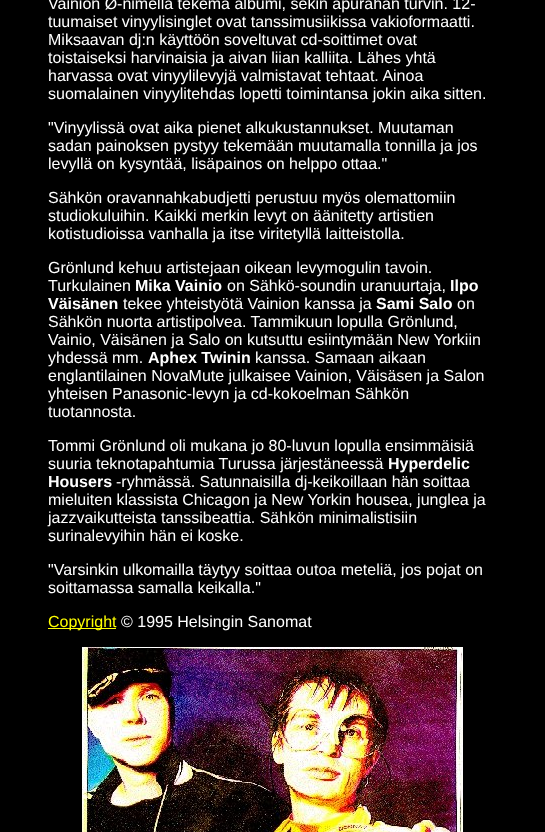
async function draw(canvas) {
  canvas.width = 545;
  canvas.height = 832;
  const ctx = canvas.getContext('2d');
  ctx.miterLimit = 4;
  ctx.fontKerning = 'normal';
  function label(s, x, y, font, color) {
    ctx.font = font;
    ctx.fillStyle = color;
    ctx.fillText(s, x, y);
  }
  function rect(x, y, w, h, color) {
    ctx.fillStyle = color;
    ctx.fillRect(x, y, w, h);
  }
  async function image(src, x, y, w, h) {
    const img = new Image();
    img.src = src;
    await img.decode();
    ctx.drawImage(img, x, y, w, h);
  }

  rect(0, 0, 545, 832, '#000');
  label('Vainion Ø-nimellä tekemä albumi, sekin apurahan turvin. 12-', 48, 9, '16px Liberation Sans', '#fff');
  label('tuumaiset vinyylisinglet ovat tanssimusiikissa vakioformaatti.', 48, 27, '16px Liberation Sans', '#fff');
  label('Miksaavan dj:n käyttöön soveltuvat cd-soittimet ovat', 48, 45, '16px Liberation Sans', '#fff');
  label('toistaiseksi harvinaisia ja aivan liian kalliita. Lähes yhtä', 48, 63, '16px Liberation Sans', '#fff');
  label('harvassa ovat vinyylilevyjä valmistavat tehtaat. Ainoa', 48, 81, '16px Liberation Sans', '#fff');
  label('suomalainen vinyylitehdas lopetti toimintansa jokin aika sitten.', 48, 99, '16px Liberation Sans', '#fff');
  label('"Vinyylissä ovat aika pienet alkukustannukset. Muutaman', 48, 133, '16px Liberation Sans', '#fff');
  label('sadan painoksen pystyy tekemään muutamalla tonnilla ja jos', 48, 151, '16px Liberation Sans', '#fff');
  label('levyllä on kysyntää, lisäpainos on helppo ottaa."', 48, 169, '16px Liberation Sans', '#fff');
  label('Sähkön oravannahkabudjetti perustuu myös olemattomiin', 48, 203, '16px Liberation Sans', '#fff');
  label('studiokuluihin. Kaikki merkin levyt on äänitetty artistien', 48, 221, '16px Liberation Sans', '#fff');
  label('kotistudioissa vanhalla ja itse viritetyllä laitteistolla.', 48, 239, '16px Liberation Sans', '#fff');
  label('Grönlund kehuu artistejaan oikean levymogulin tavoin.', 48, 273, '16px Liberation Sans', '#fff');
  label('Turkulainen', 48, 291, '16px Liberation Sans', '#fff');
  label('Mika Vainio', 135, 291, 'bold 16px Liberation Sans', '#fff');
  label('on Sähkö-soundin uranuurtaja,', 227, 291, '16px Liberation Sans', '#fff');
  label('Ilpo', 450, 291, 'bold 16px Liberation Sans', '#fff');
  label('Väisänen', 48, 309, 'bold 16px Liberation Sans', '#fff');
  label('tekee yhteistyötä Vainion kanssa ja', 123, 309, '16px Liberation Sans', '#fff');
  label('Sami Salo', 376, 309, 'bold 16px Liberation Sans', '#fff');
  label('on', 457, 309, '16px Liberation Sans', '#fff');
  label('Sähkön nuorta artistipolvea. Tammikuun lopulla Grönlund,', 48, 327, '16px Liberation Sans', '#fff');
  label('Vainio, Väisänen ja Salo on kutsuttu esiintymään New Yorkiin', 48, 345, '16px Liberation Sans', '#fff');
  label('yhdessä mm.', 48, 363, '16px Liberation Sans', '#fff');
  label('Aphex Twinin', 148, 363, 'bold 16px Liberation Sans', '#fff');
  label('kanssa. Samaan aikaan', 255, 363, '16px Liberation Sans', '#fff');
  label('englantilainen NovaMute julkaisee Vainion, Väisäsen ja Salon', 48, 381, '16px Liberation Sans', '#fff');
  label('yhteisen Panasonic-levyn ja cd-kokoelman Sähkön', 48, 399, '16px Liberation Sans', '#fff');
  label('tuotannosta.', 48, 417, '16px Liberation Sans', '#fff');
  label('Tommi Grönlund oli mukana jo 80-luvun lopulla ensimmäisiä', 48, 451, '16px Liberation Sans', '#fff');
  label('suuria teknotapahtumia Turussa järjestäneessä', 48, 469, '16px Liberation Sans', '#fff');
  label('Hyperdelic', 388, 469, 'bold 16px Liberation Sans', '#fff');
  label('Housers', 48, 487, 'bold 16px Liberation Sans', '#fff');
  label('-ryhmässä. Satunnaisilla dj-keikoillaan hän soittaa', 116, 487, '16px Liberation Sans', '#fff');
  label('mieluiten klassista Chicagon ja New Yorkin housea, junglea ja', 48, 505, '16px Liberation Sans', '#fff');
  label('jazzvaikutteista tanssibeattia. Sähkön minimalistisiin', 48, 523, '16px Liberation Sans', '#fff');
  label('surinalevyihin hän ei koske.', 48, 541, '16px Liberation Sans', '#fff');
  label('"Varsinkin ulkomailla täytyy soittaa outoa meteliä, jos pojat on', 48, 575, '16px Liberation Sans', '#fff');
  label('soittamassa samalla keikalla."', 48, 593, '16px Liberation Sans', '#fff');
  rect(48, 628, 68, 1, '#ff0');
  label('Copyright', 48, 627, '16px Liberation Sans', '#ff0');
  label('© 1995 Helsingin Sanomat', 121, 627, '16px Liberation Sans', '#fff');
  await image('assets/img1.png', 82, 647, 381, 185);
}

draw(document.querySelector('canvas'));
